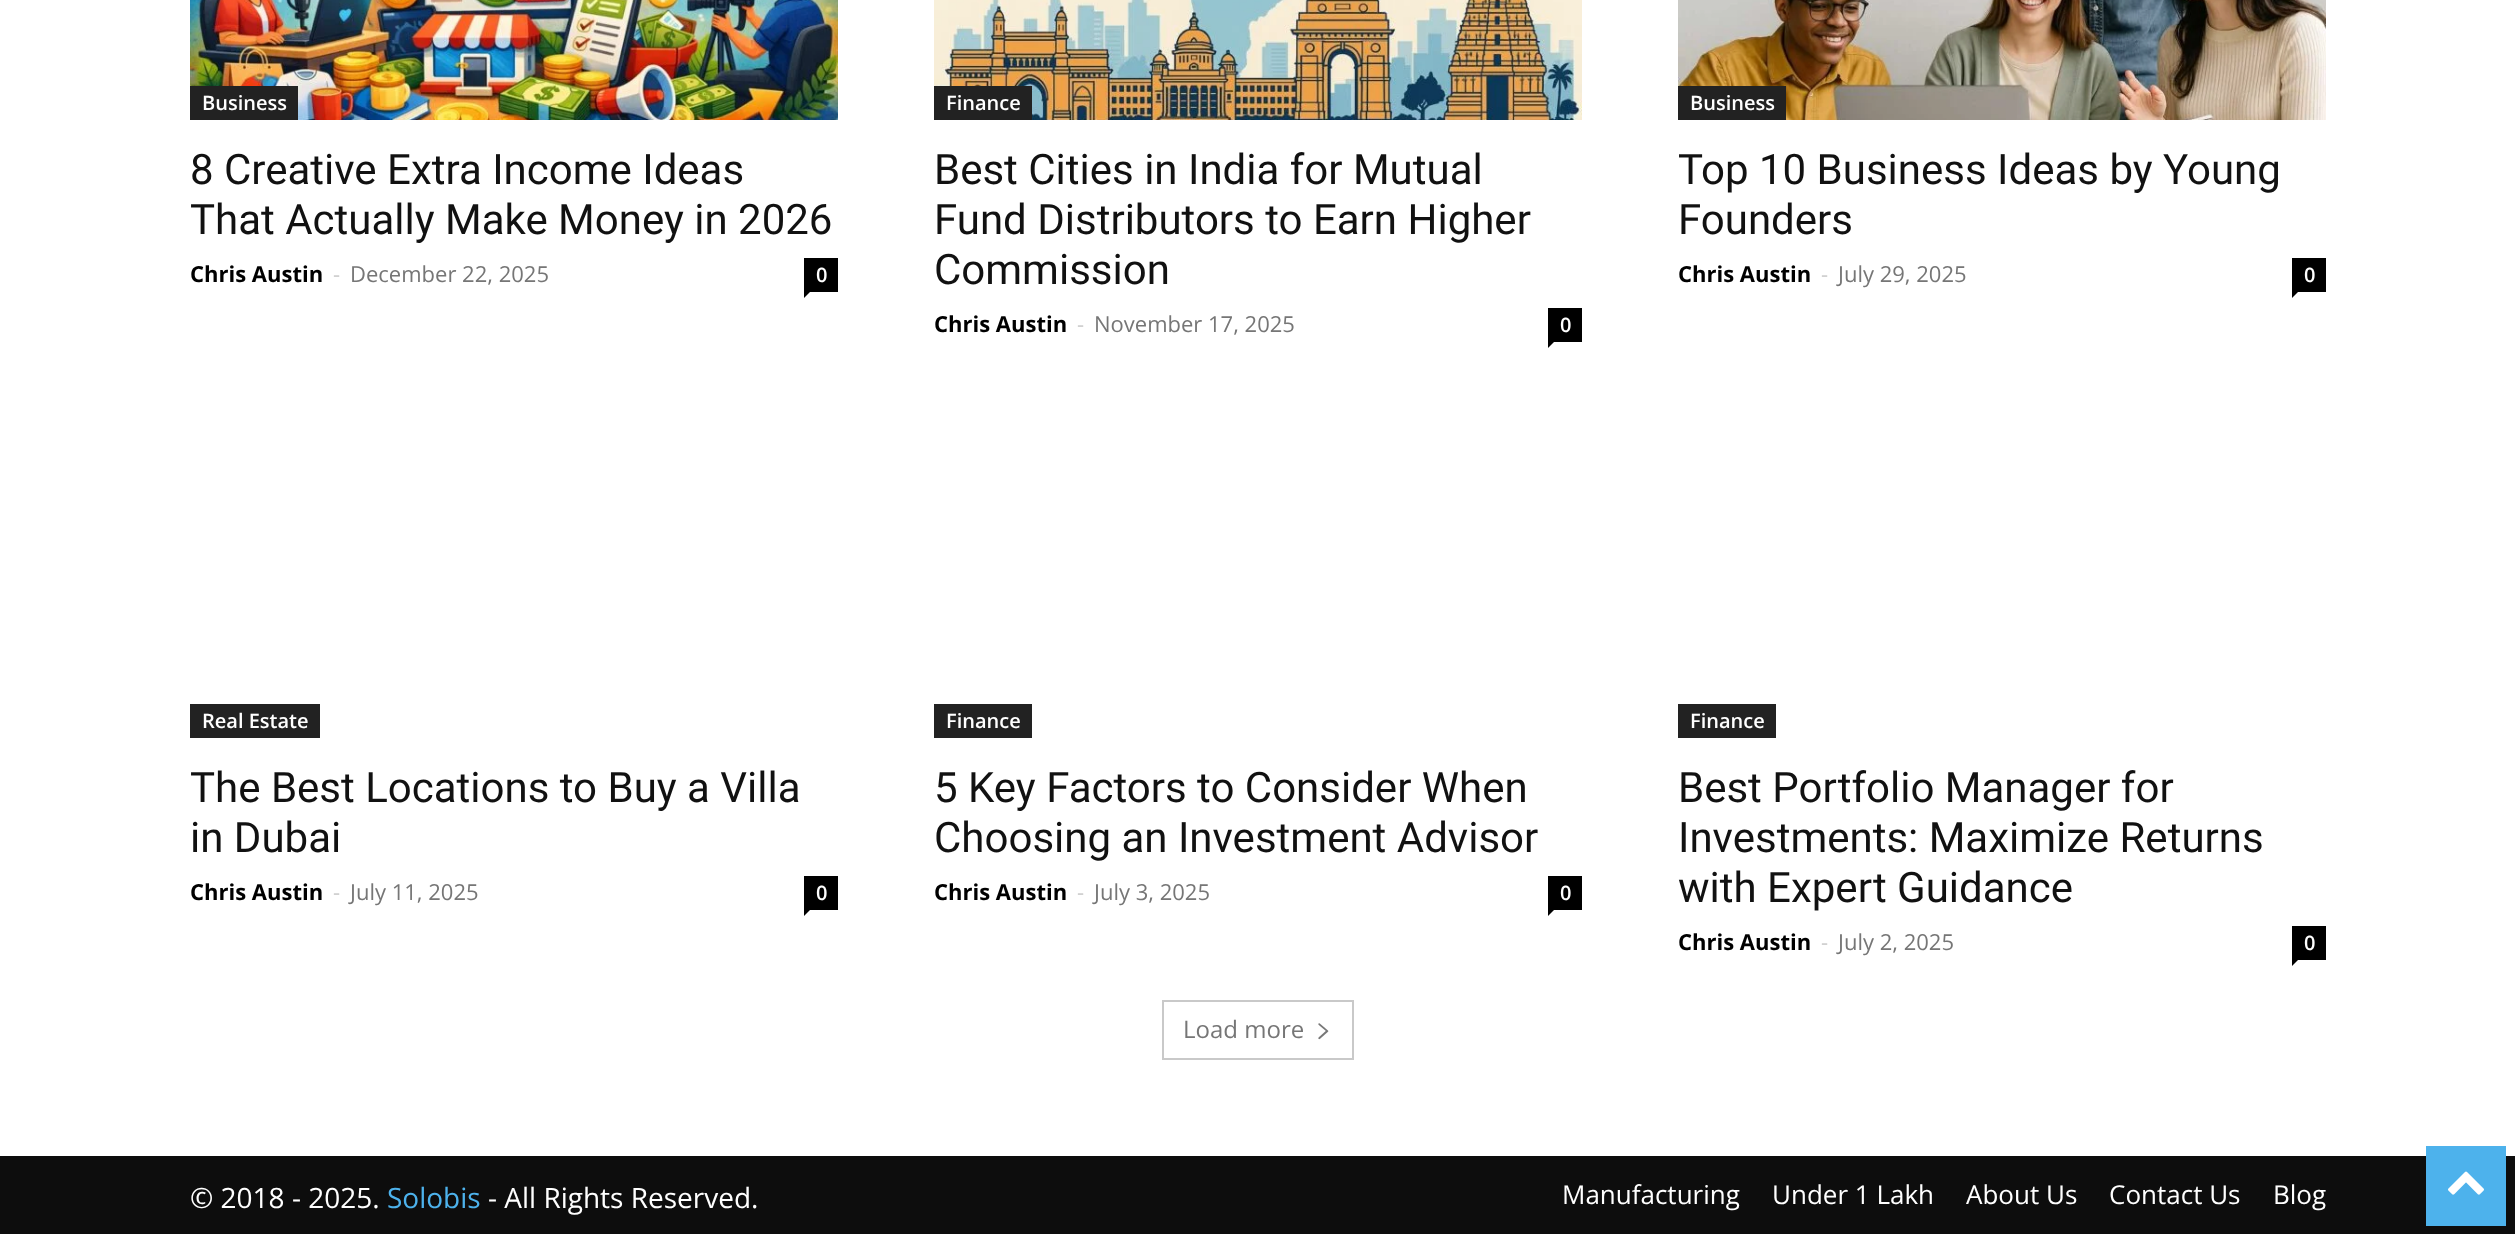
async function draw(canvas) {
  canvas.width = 2515;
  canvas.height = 1234;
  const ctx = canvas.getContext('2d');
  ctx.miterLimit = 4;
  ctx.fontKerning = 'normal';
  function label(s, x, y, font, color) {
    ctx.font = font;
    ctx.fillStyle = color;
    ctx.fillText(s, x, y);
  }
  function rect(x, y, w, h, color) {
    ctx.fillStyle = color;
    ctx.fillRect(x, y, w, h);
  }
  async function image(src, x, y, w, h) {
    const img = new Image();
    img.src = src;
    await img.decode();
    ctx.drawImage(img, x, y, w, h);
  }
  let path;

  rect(0, 0, 2515, 1234, '#fff');
  await image('assets/img1.png', 190, 0, 648, 120);
  rect(190, 86, 108, 34, '#222');
  label('Business', 202, 110, '600 20px Open Sans', '#fff');
  label('8 Creative Extra Income Ideas', 190, 184, '42px Roboto', '#111');
  label('That Actually Make Money in 2026', 190, 234, '42px Roboto', '#111');
  label('Chris Austin', 190, 282, 'bold 22px Open Sans', '#000');
  label('-', 333, 282, '22px Open Sans', '#ccc');
  label('December 22, 2025', 350, 282, '22px Open Sans', '#767676');
  rect(804, 258, 34, 34, '#000');
  label('0', 816, 282, '600 20px Open Sans', '#fff');
  ctx.fillStyle = '#000';
  path = new Path2D('M804 292H810L804 298Z');
  ctx.fill(path);
  await image('assets/img2.png', 934, 0, 648, 120);
  rect(934, 86, 98, 34, '#222');
  label('Finance', 946, 110, '600 20px Open Sans', '#fff');
  label('Best Cities in India for Mutual', 934, 184, '42px Roboto', '#111');
  label('Fund Distributors to Earn Higher', 934, 234, '42px Roboto', '#111');
  label('Commission', 934, 284, '42px Roboto', '#111');
  label('Chris Austin', 934, 332, 'bold 22px Open Sans', '#000');
  label('-', 1077, 332, '22px Open Sans', '#ccc');
  label('November 17, 2025', 1094, 332, '22px Open Sans', '#767676');
  rect(1548, 308, 34, 34, '#000');
  label('0', 1560, 332, '600 20px Open Sans', '#fff');
  ctx.fillStyle = '#000';
  path = new Path2D('M1548 342H1554L1548 348Z');
  ctx.fill(path);
  await image('assets/img3.png', 1678, 0, 648, 120);
  rect(1678, 86, 108, 34, '#222');
  label('Business', 1690, 110, '600 20px Open Sans', '#fff');
  label('Top 10 Business Ideas by Young', 1678, 184, '42px Roboto', '#111');
  label('Founders', 1678, 234, '42px Roboto', '#111');
  label('Chris Austin', 1678, 282, 'bold 22px Open Sans', '#000');
  label('-', 1821, 282, '22px Open Sans', '#ccc');
  label('July 29, 2025', 1838, 282, '22px Open Sans', '#767676');
  rect(2292, 258, 34, 34, '#000');
  label('0', 2304, 282, '600 20px Open Sans', '#fff');
  ctx.fillStyle = '#000';
  path = new Path2D('M2292 292H2298L2292 298Z');
  ctx.fill(path);
  rect(190, 704, 130, 34, '#222');
  label('Real Estate', 202, 728, '600 20px Open Sans', '#fff');
  label('The Best Locations to Buy a Villa', 190, 802, '42px Roboto', '#111');
  label('in Dubai', 190, 852, '42px Roboto', '#111');
  label('Chris Austin', 190, 900, 'bold 22px Open Sans', '#000');
  label('-', 333, 900, '22px Open Sans', '#ccc');
  label('July 11, 2025', 350, 900, '22px Open Sans', '#767676');
  rect(804, 876, 34, 34, '#000');
  label('0', 816, 900, '600 20px Open Sans', '#fff');
  ctx.fillStyle = '#000';
  path = new Path2D('M804 910H810L804 916Z');
  ctx.fill(path);
  rect(934, 704, 98, 34, '#222');
  label('Finance', 946, 728, '600 20px Open Sans', '#fff');
  label('5 Key Factors to Consider When', 934, 802, '42px Roboto', '#111');
  label('Choosing an Investment Advisor', 934, 852, '42px Roboto', '#111');
  label('Chris Austin', 934, 900, 'bold 22px Open Sans', '#000');
  label('-', 1077, 900, '22px Open Sans', '#ccc');
  label('July 3, 2025', 1094, 900, '22px Open Sans', '#767676');
  rect(1548, 876, 34, 34, '#000');
  label('0', 1560, 900, '600 20px Open Sans', '#fff');
  ctx.fillStyle = '#000';
  path = new Path2D('M1548 910H1554L1548 916Z');
  ctx.fill(path);
  rect(1678, 704, 98, 34, '#222');
  label('Finance', 1690, 728, '600 20px Open Sans', '#fff');
  label('Best Portfolio Manager for', 1678, 802, '42px Roboto', '#111');
  label('Investments: Maximize Returns', 1678, 852, '42px Roboto', '#111');
  label('with Expert Guidance', 1678, 902, '42px Roboto', '#111');
  label('Chris Austin', 1678, 950, 'bold 22px Open Sans', '#000');
  label('-', 1821, 950, '22px Open Sans', '#ccc');
  label('July 2, 2025', 1838, 950, '22px Open Sans', '#767676');
  rect(2292, 926, 34, 34, '#000');
  label('0', 2304, 950, '600 20px Open Sans', '#fff');
  ctx.fillStyle = '#000';
  path = new Path2D('M2292 960H2298L2292 966Z');
  ctx.fill(path);
  ctx.strokeStyle = '#c9c9c9';
  ctx.lineWidth = 2;
  ctx.strokeRect(1163, 1001, 190, 58);
  label('Load more', 1183, 1038, '24px Open Sans', '#767676');
  await image('assets/img4.png', 1318, 1023, 11, 17);
  rect(0, 1156, 2515, 78, '#0d0d0d');
  label('© 2018 - 2025.', 190, 1208, '28px Open Sans', '#fff');
  label('Solobis', 387, 1208, '28px Open Sans', '#4db2ec');
  label('- All Rights Reserved.', 488, 1208, '28px Open Sans', '#fff');
  label('Manufacturing', 1562, 1204, '26px Open Sans', '#fff');
  label('Under 1 Lakh', 1772, 1204, '26px Open Sans', '#fff');
  label('About Us', 1966, 1204, '26px Open Sans', '#fff');
  label('Contact Us', 2109, 1204, '26px Open Sans', '#fff');
  label('Blog', 2273, 1204, '26px Open Sans', '#fff');
  rect(2426, 1146, 80, 80, '#4db2ec');
  await image('assets/img5.png', 2448, 1171, 36, 24);
}

draw(document.querySelector('canvas'));
